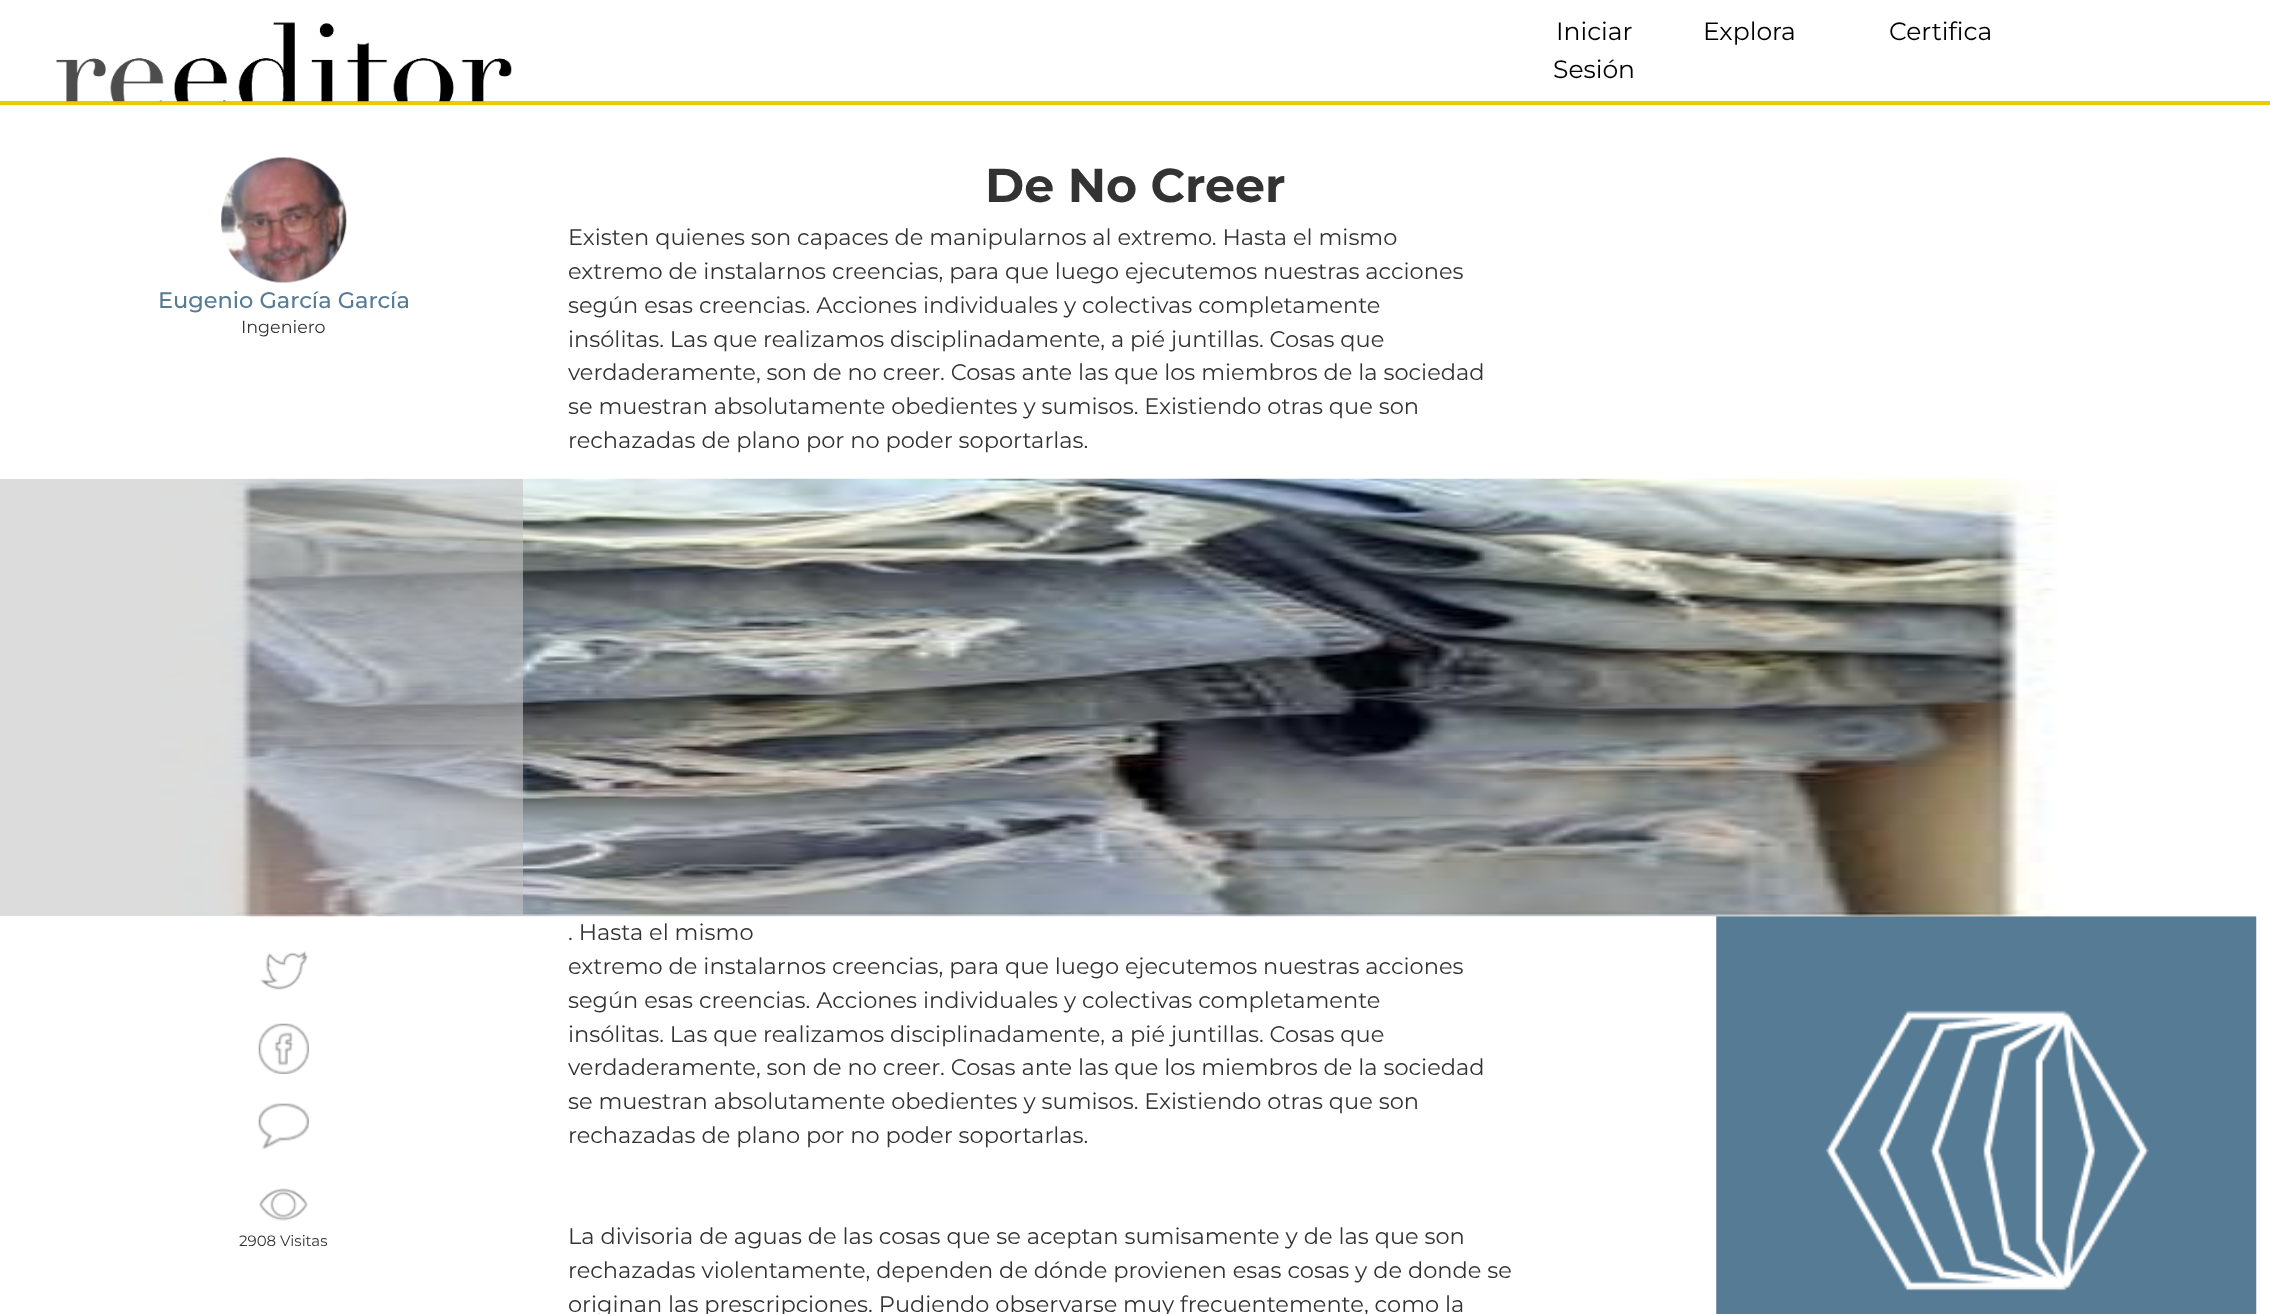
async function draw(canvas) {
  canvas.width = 2270;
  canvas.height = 1314;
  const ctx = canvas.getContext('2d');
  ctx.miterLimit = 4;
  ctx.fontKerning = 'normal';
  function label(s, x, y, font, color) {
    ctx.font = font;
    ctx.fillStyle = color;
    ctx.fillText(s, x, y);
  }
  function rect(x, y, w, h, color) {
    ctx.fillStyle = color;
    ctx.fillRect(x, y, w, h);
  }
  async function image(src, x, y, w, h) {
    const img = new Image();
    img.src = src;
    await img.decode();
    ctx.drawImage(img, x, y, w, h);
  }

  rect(0, 0, 2270, 1314, '#fff');
  rect(0, 101, 2270, 4, '#ecc900');
  await image('assets/img1.png', 56, 22, 456, 80);
  label('Iniciar', 1556, 40, '25px Montserrat', '#000');
  label('Sesión', 1553, 78, '25px Montserrat', '#000');
  label('Explora', 1703, 40, '25px Montserrat', '#000');
  label('Certifica', 1889, 40, '25px Montserrat', '#000');
  await image('assets/img2.png', 221, 157, 126, 126);
  label('Eugenio García García', 158, 308, '500 22.5px Montserrat', '#567b95');
  label('Ingeniero', 241, 333, '17.5px Montserrat', '#333');
  label('De No Creer', 985, 202, 'bold 47.5px Montserrat', '#333');
  label('Existen quienes son capaces de manipularnos al extremo. Hasta el mismo', 568, 245, '22.5px Montserrat', '#333');
  label('extremo de instalarnos creencias, para que luego ejecutemos nuestras acciones', 568, 279, '22.5px Montserrat', '#333');
  label('según esas creencias. Acciones individuales y colectivas completamente', 568, 313, '22.5px Montserrat', '#333');
  label('insólitas. Las que realizamos disciplinadamente, a pié juntillas. Cosas que', 568, 347, '22.5px Montserrat', '#333');
  label('verdaderamente, son de no creer. Cosas ante las que los miembros de la sociedad', 568, 380, '22.5px Montserrat', '#333');
  label('se muestran absolutamente obedientes y sumisos. Existiendo otras que son', 568, 414, '22.5px Montserrat', '#333');
  label('rechazadas de plano por no poder soportarlas.', 568, 448, '22.5px Montserrat', '#333');
  await image('assets/img8.png', 1716, 916, 541, 398);
  await image('assets/img3.png', 160, 478, 2097, 439);
  rect(0, 479, 523, 437, '#c4c4c499');
  await image('assets/img4.png', 260, 951, 48, 39);
  await image('assets/img5.png', 258, 1023, 51, 51);
  await image('assets/img6.png', 258, 1103, 51, 47);
  await image('assets/img7.png', 259, 1188, 49, 33);
  label('2908 Visitas', 239, 1246, '15px Montserrat', '#333');
  label('. Hasta el mismo', 568, 940, '22.5px Montserrat', '#333');
  label('extremo de instalarnos creencias, para que luego ejecutemos nuestras acciones', 568, 974, '22.5px Montserrat', '#333');
  label('según esas creencias. Acciones individuales y colectivas completamente', 568, 1008, '22.5px Montserrat', '#333');
  label('insólitas. Las que realizamos disciplinadamente, a pié juntillas. Cosas que', 568, 1042, '22.5px Montserrat', '#333');
  label('verdaderamente, son de no creer. Cosas ante las que los miembros de la sociedad', 568, 1075, '22.5px Montserrat', '#333');
  label('se muestran absolutamente obedientes y sumisos. Existiendo otras que son', 568, 1109, '22.5px Montserrat', '#333');
  label('rechazadas de plano por no poder soportarlas.', 568, 1143, '22.5px Montserrat', '#333');
  label('La divisoria de aguas de las cosas que se aceptan sumisamente y de las que son', 568, 1244, '22.5px Montserrat', '#333');
  label('rechazadas violentamente, dependen de dónde provienen esas cosas y de donde se', 568, 1278, '22.5px Montserrat', '#333');
  label('originan las prescripciones. Pudiendo observarse muy frecuentemente, como la', 568, 1312, '22.5px Montserrat', '#333');
}

draw(document.querySelector('canvas'));
